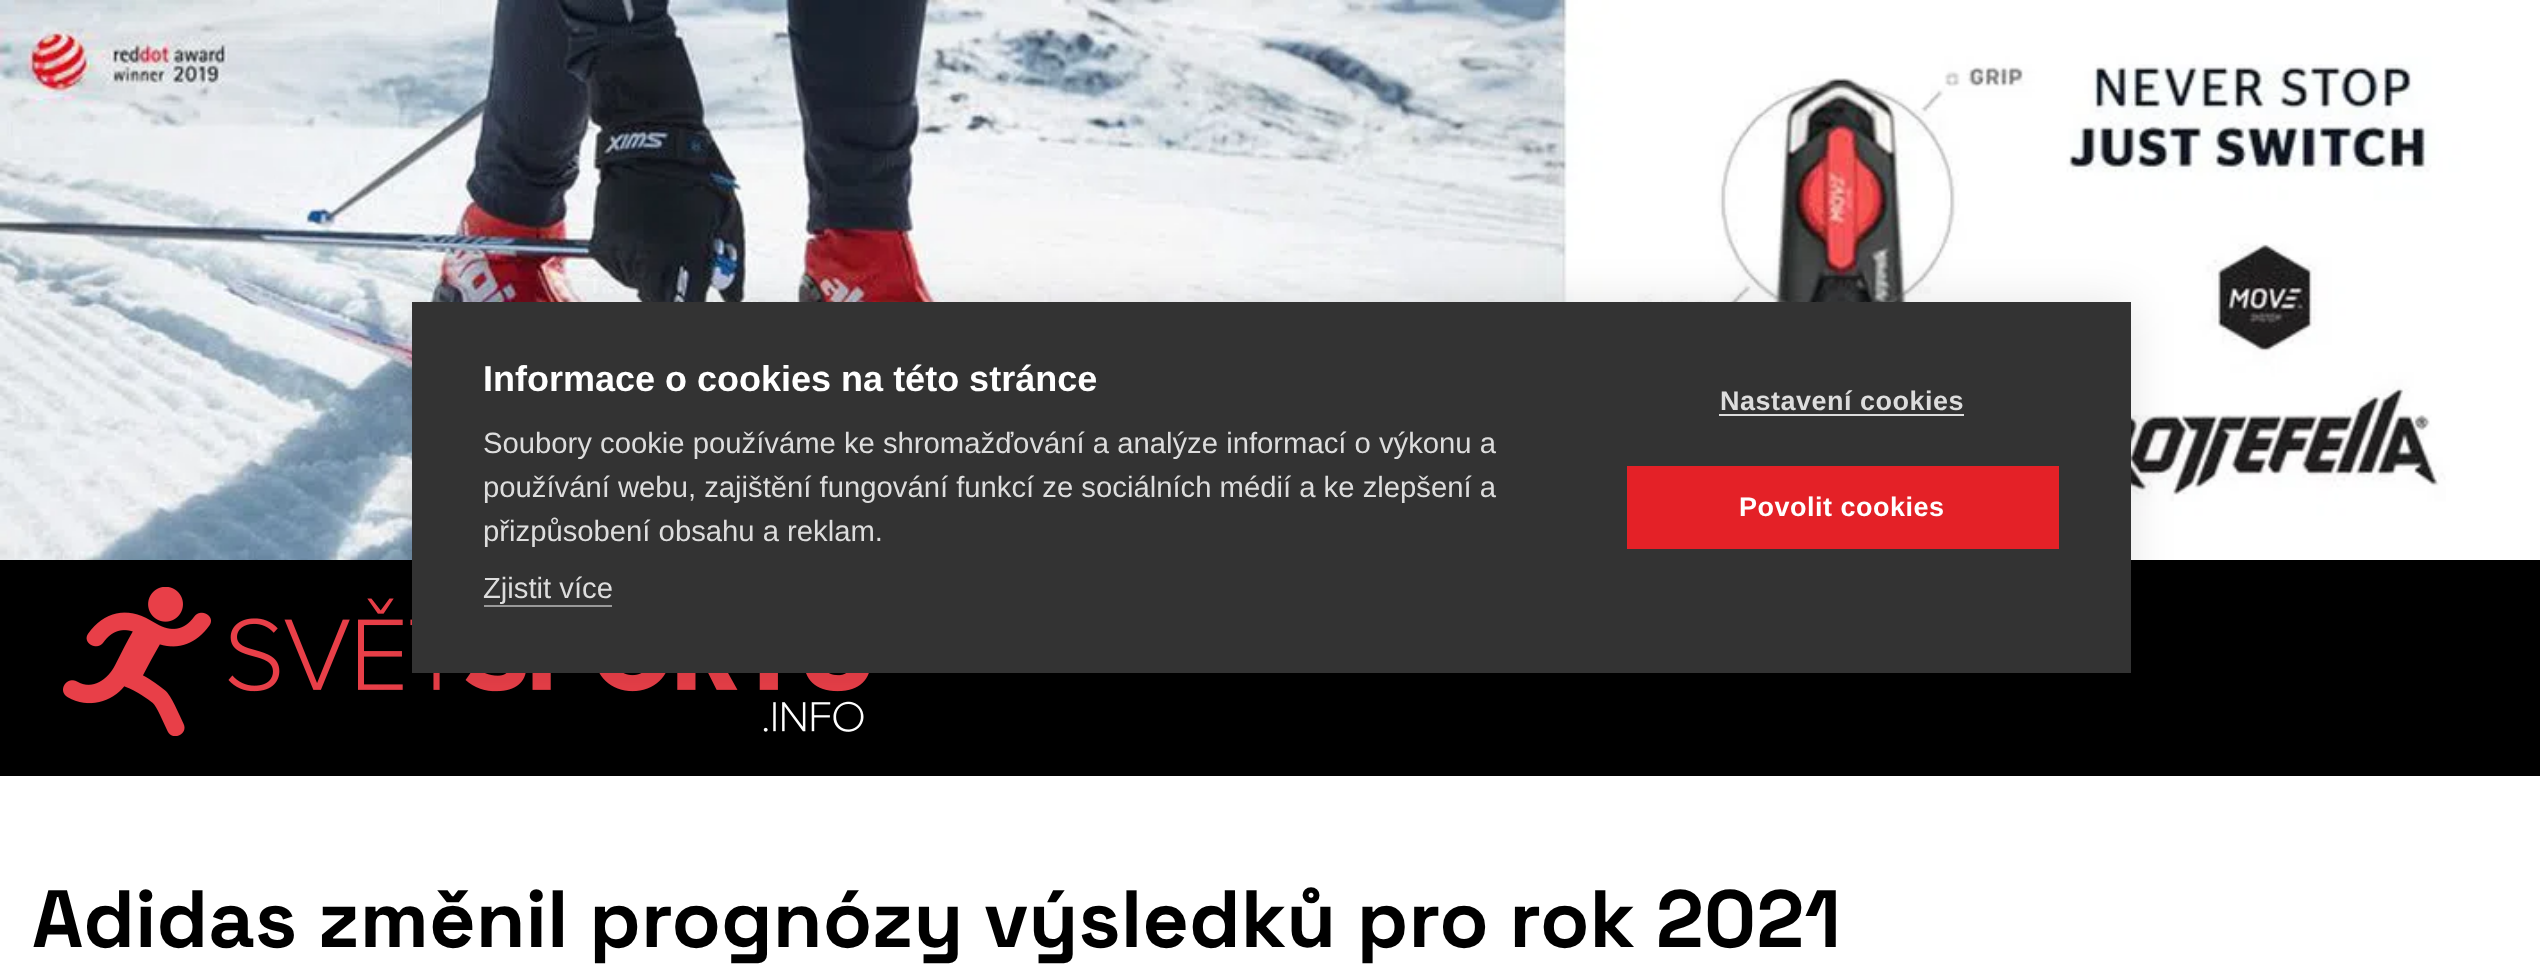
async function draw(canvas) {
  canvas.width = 2540;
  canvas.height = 972;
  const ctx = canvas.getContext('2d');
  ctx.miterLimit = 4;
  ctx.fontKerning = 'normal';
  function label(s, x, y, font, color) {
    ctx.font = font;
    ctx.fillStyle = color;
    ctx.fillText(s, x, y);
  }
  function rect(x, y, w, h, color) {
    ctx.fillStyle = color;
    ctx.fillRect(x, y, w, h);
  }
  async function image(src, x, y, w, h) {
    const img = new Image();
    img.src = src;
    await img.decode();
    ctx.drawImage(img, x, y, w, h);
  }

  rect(0, 0, 2540, 972, '#fff');
  await image('assets/img1.png', 0, 0, 2540, 560);
  rect(0, 560, 2540, 216, '#000');
  await image('assets/img2.png', 63, 587, 806, 149);
  ctx.fillStyle = '#0000001a';
  ctx.filter = 'blur(22.5px)';
  ctx.beginPath();
  ctx.rect(412, 302, 1719, 371);
  ctx.fill();
  ctx.filter = 'none';
  rect(412, 302, 1719, 371, '#333');
  label('Informace o cookies na této stránce', 483, 391, 'bold 36px Liberation Sans', '#fff');
  label('Soubory cookie používáme ke shromažďování a analýze informací o výkonu a', 483, 453, '29.25px Liberation Sans', '#ddd');
  label('používání webu, zajištění fungování funkcí ze sociálních médií a ke zlepšení a', 483, 497, '29.25px Liberation Sans', '#ddd');
  label('přizpůsobení obsahu a reklam.', 483, 541, '29.25px Liberation Sans', '#ddd');
  label('Zjistit více', 483, 598, '29.25px Liberation Sans', '#ddd');
  rect(484, 605, 128, 2, '#999');
  ctx.letterSpacing = '0.5px';
  label('Nastavení cookies', 1720, 410, 'bold 27px Liberation Sans', '#ddd');
  rect(1719, 414, 245, 2, '#ddd');
  rect(1627, 466, 432, 83, '#e42127');
  label('Povolit cookies', 1739, 516, 'bold 27px Liberation Sans', '#fff');
  ctx.letterSpacing = '0px';
  label('Adidas změnil prognózy výsledků pro rok 2021', 32, 947, 'bold 81px Space Grotesk', '#000');
}

draw(document.querySelector('canvas'));
